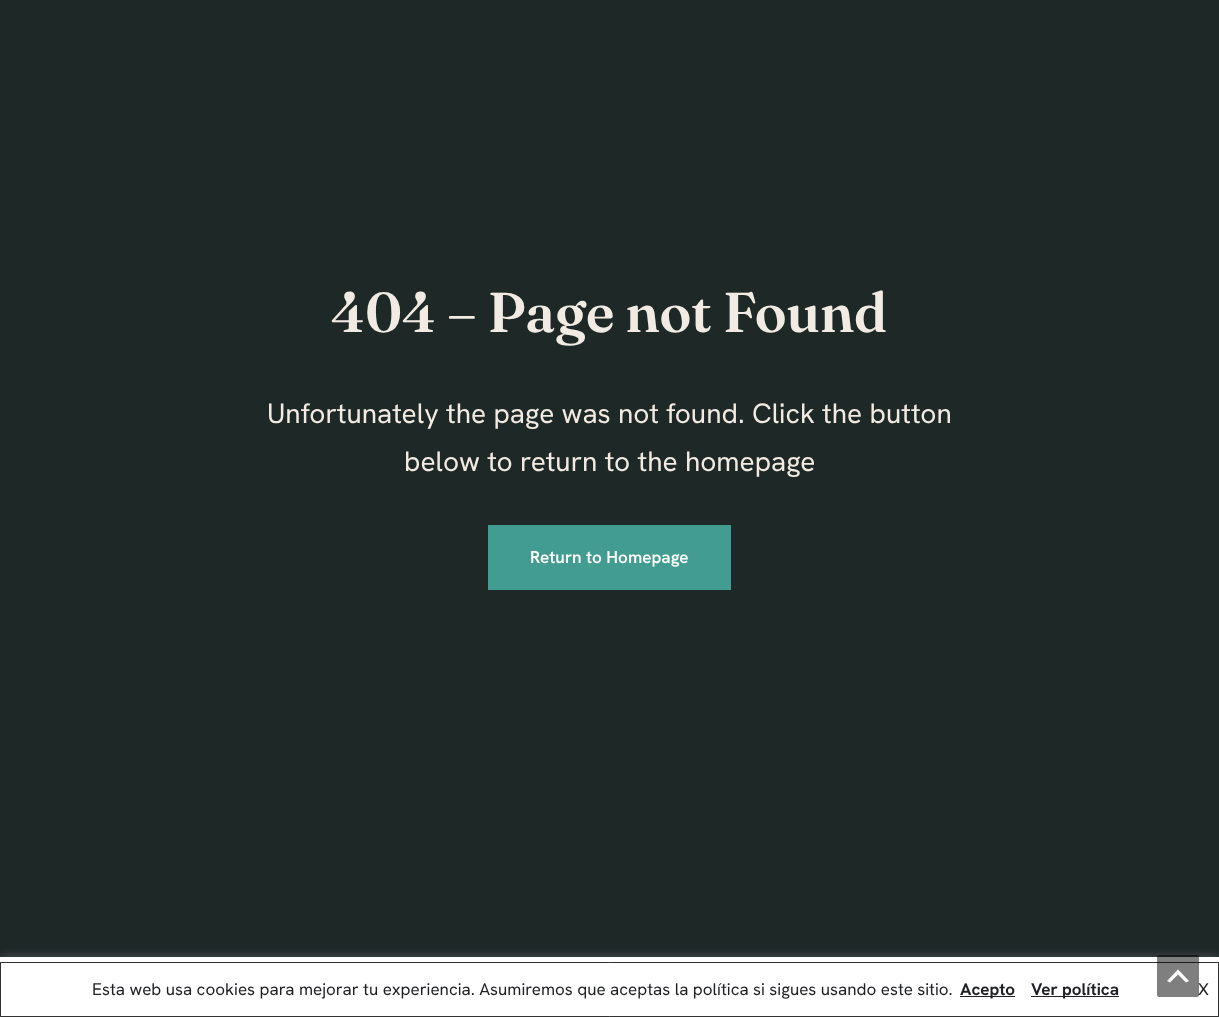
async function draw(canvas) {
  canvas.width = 1219;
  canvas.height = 1017;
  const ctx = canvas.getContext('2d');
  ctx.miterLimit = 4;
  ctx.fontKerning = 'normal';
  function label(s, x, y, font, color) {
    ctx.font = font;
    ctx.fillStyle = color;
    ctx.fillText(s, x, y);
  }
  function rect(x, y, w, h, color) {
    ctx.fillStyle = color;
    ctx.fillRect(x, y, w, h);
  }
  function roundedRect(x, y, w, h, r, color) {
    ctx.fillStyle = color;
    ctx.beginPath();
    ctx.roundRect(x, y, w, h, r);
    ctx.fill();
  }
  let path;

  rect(0, 0, 1219, 1017, '#1e2827');
  label('404 – Page not Found', 331, 332, '600 56px Fraunces', '#f2ebe3');
  label('Unfortunately the page was not found. Click the button', 267, 423, '28px Hanken Grotesk', '#f2ebe3');
  label('below to return to the homepage', 404, 471, '28px Hanken Grotesk', '#f2ebe3');
  rect(488, 525, 243, 65, '#429c91');
  label('Return to Homepage', 530, 563, '600 17.1px Hanken Grotesk', '#fffffa');
  ctx.fillStyle = '#acabab4d';
  ctx.filter = 'blur(5px)';
  ctx.beginPath();
  ctx.rect(0, 956, 1219, 60);
  ctx.fill();
  ctx.filter = 'none';
  rect(0, 957, 1219, 5, '#fff');
  ctx.beginPath();
  ctx.rect(0.5, 962.5, 1218, 54);
  ctx.fill();
  ctx.strokeStyle = '#333';
  ctx.stroke();
  label('X', 1198, 995, '17px Hanken Grotesk', '#1f2023');
  roundedRect(1157, 955, 42, 42, 2, '#00000080');
  ctx.fillStyle = '#fff';
  path = new Path2D('M1186 982.5L1178 974.5L1170 982.5L1167 981L1178 969.5L1189 981Z');
  ctx.fill(path);
  label('Esta web usa cookies para mejorar tu experiencia. Asumiremos que aceptas la política si sigues usando este sitio.', 92, 995, '17px Hanken Grotesk', '#1f2023');
  rect(960, 996, 55, 1, '#1f2023');
  label('Acepto', 960, 995, 'bold 17px Hanken Grotesk', '#1f2023');
  rect(1031, 996, 88, 1, '#1f2023');
  label('Ver política', 1031, 995, 'bold 17px Hanken Grotesk', '#1f2023');
}

draw(document.querySelector('canvas'));
